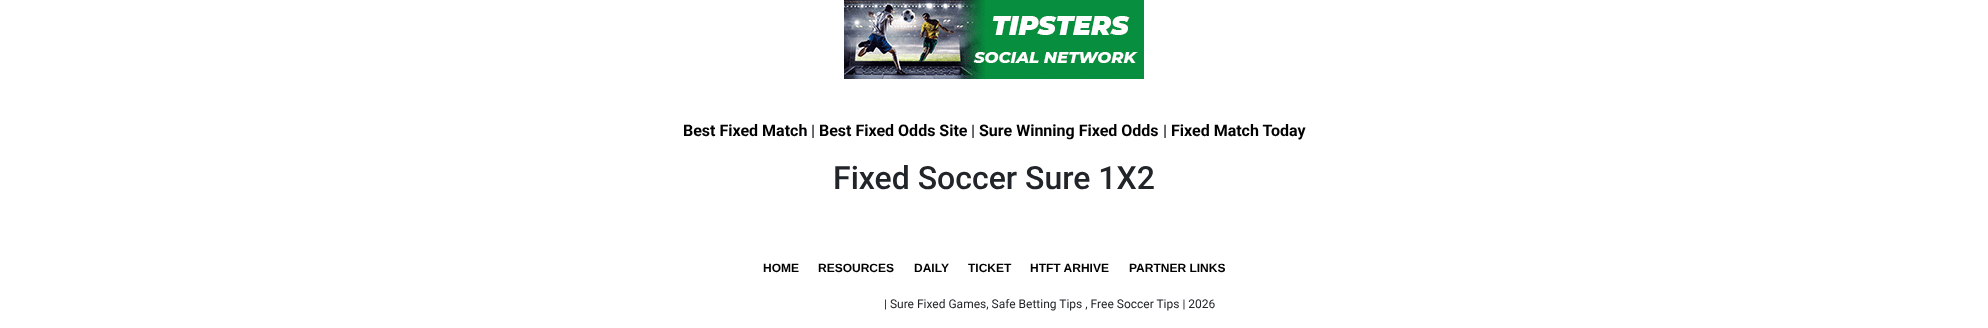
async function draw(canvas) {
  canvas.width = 1988;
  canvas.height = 328;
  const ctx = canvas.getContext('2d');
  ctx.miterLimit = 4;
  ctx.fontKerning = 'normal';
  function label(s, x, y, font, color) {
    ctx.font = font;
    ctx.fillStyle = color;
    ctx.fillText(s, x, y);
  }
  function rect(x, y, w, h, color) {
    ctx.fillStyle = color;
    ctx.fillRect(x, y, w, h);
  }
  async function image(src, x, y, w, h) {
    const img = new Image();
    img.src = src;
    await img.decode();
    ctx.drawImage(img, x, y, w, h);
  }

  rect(0, 0, 1988, 328, '#fff');
  await image('assets/img1.png', 844, 0, 300, 79);
  label('Best Fixed Match', 683, 136, 'bold 16px Roboto', '#000');
  label('|', 811, 136, 'bold 16px Roboto', '#212529');
  label('Best Fixed Odds Site', 819, 136, 'bold 16px Roboto', '#000');
  label('|', 971, 136, 'bold 16px Roboto', '#212529');
  label('Sure Winning Fixed Odds', 979, 136, 'bold 16px Roboto', '#000');
  label('|', 1163, 136, 'bold 16px Roboto', '#212529');
  label('Fixed Match Today', 1171, 136, 'bold 16px Roboto', '#000');
  label('Fixed Soccer Sure 1X2', 833, 189, '500 32px Roboto', '#212529');
  label('HOME', 763, 272, 'bold 12px Liberation Sans', '#000');
  label('RESOURCES', 818, 272, 'bold 12px Liberation Sans', '#000');
  label('DAILY', 914, 272, 'bold 12px Liberation Sans', '#000');
  label('TICKET', 968, 272, 'bold 12px Liberation Sans', '#000');
  label('HTFT ARHIVE', 1030, 272, 'bold 12px Liberation Sans', '#000');
  label('PARTNER LINKS', 1129, 272, 'bold 12px Liberation Sans', '#000');
  label('| Sure Fixed Games, Safe Betting Tips , Free Soccer Tips | 2026', 884, 308, '12px Roboto', '#212529');
}

draw(document.querySelector('canvas'));
